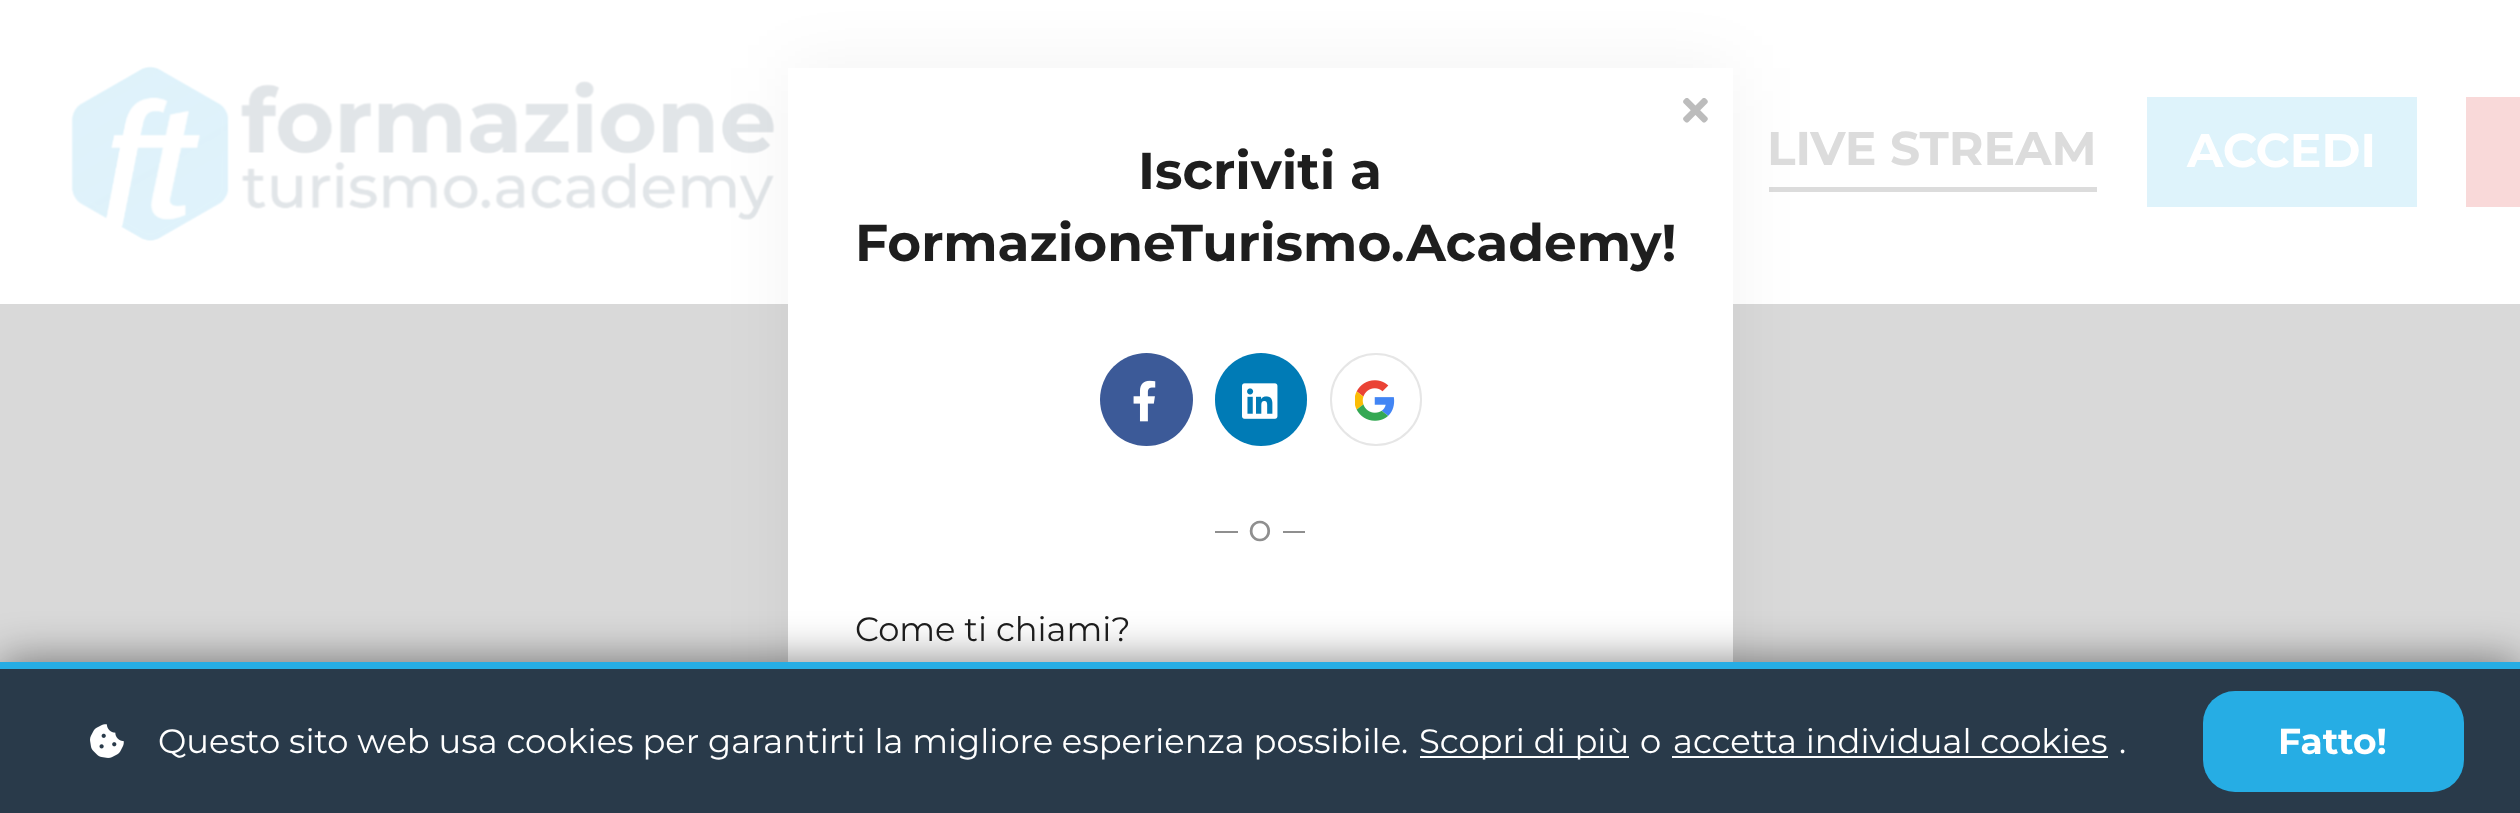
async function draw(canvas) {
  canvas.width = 2520;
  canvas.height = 813;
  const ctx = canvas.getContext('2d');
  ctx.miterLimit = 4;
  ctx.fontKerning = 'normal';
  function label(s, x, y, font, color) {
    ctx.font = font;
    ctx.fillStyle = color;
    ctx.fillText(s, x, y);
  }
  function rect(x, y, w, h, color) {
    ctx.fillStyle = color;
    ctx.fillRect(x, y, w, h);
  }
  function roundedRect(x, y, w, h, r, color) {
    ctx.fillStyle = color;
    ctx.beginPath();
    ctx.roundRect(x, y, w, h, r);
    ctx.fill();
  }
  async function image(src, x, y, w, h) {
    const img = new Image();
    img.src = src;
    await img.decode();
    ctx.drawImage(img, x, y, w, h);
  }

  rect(0, 0, 2520, 813, '#d9d9d9');
  rect(0, 0, 2520, 304, '#fff');
  await image('assets/img5.png', 71, 66, 704, 176);
  rect(1769, 187, 328, 5, '#dcdcdc');
  ctx.fillStyle = '#0000000d';
  ctx.filter = 'blur(34px)';
  ctx.beginPath();
  ctx.rect(788, 68, 945, 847);
  ctx.fill();
  ctx.filter = 'none';
  rect(788, 68, 945, 594, '#fff');
  await image('assets/img1.png', 1683, 98, 25, 25);
  label('Iscriviti a', 1138, 189, 'bold 51.75px Montserrat', '#1e1e1e');
  label('FormazioneTurismo.Academy!', 855, 261, 'bold 51.75px Montserrat', '#1e1e1e');
  ctx.fillStyle = '#3c5a98';
  ctx.beginPath();
  ctx.arc(1146.5, 399.5, 46.5, 0, 2 * Math.PI);
  ctx.fill();
  await image('assets/img2.png', 1133, 380, 23, 42);
  roundedRect(1215, 353, 92, 93, 46, '#007bb6');
  await image('assets/img3.png', 1242, 383, 36, 36);
  ctx.beginPath();
  ctx.roundRect(1331, 354, 90, 91, 45);
  ctx.strokeStyle = '#e6e6e6';
  ctx.lineWidth = 2;
  ctx.stroke();
  await image('assets/img4.png', 1355, 380, 40, 41);
  rect(1215, 531, 23, 2, '#8f8f8f');
  label('o', 1248, 541, '38px Montserrat', '#8f8f8f');
  rect(1283, 531, 22, 2, '#8f8f8f');
  label('Come ti chiami?', 855, 641, '33.75px Montserrat', '#1e1e1e');
  label('LIVE STREAM', 1767, 165, 'bold 47.25px Montserrat', '#dcdcdc');
  rect(2147, 97, 270, 110, '#def3fb');
  label('ACCEDI', 2187, 167, 'bold 47.25px Montserrat', '#fff');
  rect(2466, 97, 54, 110, '#f9d9d9');
  ctx.fillStyle = '#00000080';
  ctx.filter = 'blur(22.5px)';
  ctx.beginPath();
  ctx.rect(0, 662, 2520, 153);
  ctx.fill();
  ctx.filter = 'none';
  rect(0, 669, 2520, 144, '#293a4a');
  rect(0, 662, 2520, 7, '#26ade4');
  await image('assets/img6.png', 90, 724, 34, 34);
  label('Questo sito web usa cookies per garantirti la migliore esperienza possibile.', 158, 753, '33.75px Montserrat', '#fff');
  rect(1420, 756, 209, 2, '#fff');
  label('Scopri di più', 1419, 753, '33.75px Montserrat', '#fff');
  label('o', 1640, 753, '33.75px Montserrat', '#fff');
  label('accetta individual cookies', 1673, 753, '33.75px Montserrat', '#fff');
  rect(1672, 756, 436, 2, '#fff');
  label('.', 2119, 753, '33.75px Montserrat', '#fff');
  roundedRect(2203, 691, 261, 101, 32, '#26ade4');
  label('Fatto!', 2278, 754, 'bold 36px Montserrat', '#fff');
}

draw(document.querySelector('canvas'));
